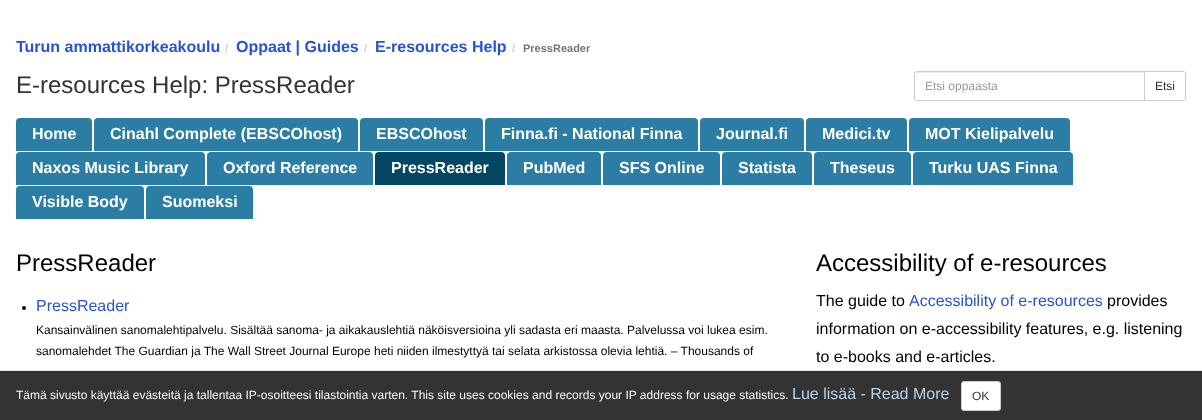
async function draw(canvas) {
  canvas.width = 1202;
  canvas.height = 420;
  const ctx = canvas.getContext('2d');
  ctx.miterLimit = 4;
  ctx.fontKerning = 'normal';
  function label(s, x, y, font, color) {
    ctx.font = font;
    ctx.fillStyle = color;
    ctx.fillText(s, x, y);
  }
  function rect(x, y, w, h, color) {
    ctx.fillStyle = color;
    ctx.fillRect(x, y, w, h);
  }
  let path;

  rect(0, 0, 1202, 420, '#fff');
  label('Turun ammattikorkeakoulu', 16, 52, 'bold 16px Liberation Sans', '#2954d1');
  label('/', 225, 52, 'bold 11px Liberation Sans', '#ccc');
  label('Oppaat | Guides', 236, 52, 'bold 16px Liberation Sans', '#2954d1');
  label('/', 364, 52, 'bold 11px Liberation Sans', '#ccc');
  label('E-resources Help', 375, 52, 'bold 16px Liberation Sans', '#2954d1');
  label('/', 512, 52, 'bold 11px Liberation Sans', '#ccc');
  label('PressReader', 523, 52, 'bold 11px Liberation Sans', '#767676');
  label('E-resources Help: PressReader', 16, 93, '24px Liberation Sans', '#333');
  ctx.fillStyle = '#ececec';
  path = new Path2D('M917 73H1144V72H917L916 73L915 75C915 74 916 73 917 73Z');
  ctx.fill(path);
  ctx.beginPath();
  ctx.roundRect(914.5, 71.5, 230, 29, [2.5, 0, 0, 2.5]);
  ctx.strokeStyle = '#ccc';
  ctx.stroke();
  label('Etsi oppaasta', 925, 90, '12px Liberation Sans', '#999');
  ctx.fillStyle = '#fff';
  ctx.beginPath();
  ctx.roundRect(1144.5, 71.5, 41, 29, [0, 2.5, 2.5, 0]);
  ctx.fill();
  ctx.stroke();
  label('Etsi', 1155, 90, '12px Liberation Sans', '#333');
  ctx.fillStyle = '#2c7da3';
  ctx.beginPath();
  ctx.roundRect(16, 118, 76, 33, [4, 4, 0, 0]);
  ctx.fill();
  label('Home', 32, 139, 'bold 16px Liberation Sans', '#fff');
  ctx.fillStyle = '#2c7da3';
  ctx.beginPath();
  ctx.roundRect(94, 118, 264, 33, [4, 4, 0, 0]);
  ctx.fill();
  label('Cinahl Complete (EBSCOhost)', 110, 139, 'bold 16px Liberation Sans', '#fff');
  ctx.fillStyle = '#2c7da3';
  ctx.beginPath();
  ctx.roundRect(360, 118, 123, 33, [4, 4, 0, 0]);
  ctx.fill();
  label('EBSCOhost', 376, 139, 'bold 16px Liberation Sans', '#fff');
  ctx.fillStyle = '#2c7da3';
  ctx.beginPath();
  ctx.roundRect(485, 118, 213, 33, [4, 4, 0, 0]);
  ctx.fill();
  label('Finna.fi - National Finna', 501, 139, 'bold 16px Liberation Sans', '#fff');
  ctx.fillStyle = '#2c7da3';
  ctx.beginPath();
  ctx.roundRect(700, 118, 104, 33, [4, 4, 0, 0]);
  ctx.fill();
  label('Journal.fi', 716, 139, 'bold 16px Liberation Sans', '#fff');
  ctx.fillStyle = '#2c7da3';
  ctx.beginPath();
  ctx.roundRect(806, 118, 101, 33, [4, 4, 0, 0]);
  ctx.fill();
  label('Medici.tv', 822, 139, 'bold 16px Liberation Sans', '#fff');
  ctx.fillStyle = '#2c7da3';
  ctx.beginPath();
  ctx.roundRect(909, 118, 161, 33, [4, 4, 0, 0]);
  ctx.fill();
  label('MOT Kielipalvelu', 925, 139, 'bold 16px Liberation Sans', '#fff');
  ctx.fillStyle = '#2c7da3';
  ctx.beginPath();
  ctx.roundRect(16, 152, 189, 33, [4, 4, 0, 0]);
  ctx.fill();
  label('Naxos Music Library', 32, 173, 'bold 16px Liberation Sans', '#fff');
  ctx.fillStyle = '#2c7da3';
  ctx.beginPath();
  ctx.roundRect(207, 152, 166, 33, [4, 4, 0, 0]);
  ctx.fill();
  label('Oxford Reference', 223, 173, 'bold 16px Liberation Sans', '#fff');
  ctx.fillStyle = '#044664';
  ctx.beginPath();
  ctx.roundRect(375, 152, 130, 33, [4, 4, 0, 0]);
  ctx.fill();
  label('PressReader', 391, 173, 'bold 16px Liberation Sans', '#fff');
  ctx.fillStyle = '#2c7da3';
  ctx.beginPath();
  ctx.roundRect(507, 152, 94, 33, [4, 4, 0, 0]);
  ctx.fill();
  label('PubMed', 523, 173, 'bold 16px Liberation Sans', '#fff');
  ctx.fillStyle = '#2c7da3';
  ctx.beginPath();
  ctx.roundRect(603, 152, 117, 33, [4, 4, 0, 0]);
  ctx.fill();
  label('SFS Online', 619, 173, 'bold 16px Liberation Sans', '#fff');
  ctx.fillStyle = '#2c7da3';
  ctx.beginPath();
  ctx.roundRect(722, 152, 90, 33, [4, 4, 0, 0]);
  ctx.fill();
  label('Statista', 738, 173, 'bold 16px Liberation Sans', '#fff');
  ctx.fillStyle = '#2c7da3';
  ctx.beginPath();
  ctx.roundRect(814, 152, 97, 33, [4, 4, 0, 0]);
  ctx.fill();
  label('Theseus', 830, 173, 'bold 16px Liberation Sans', '#fff');
  ctx.fillStyle = '#2c7da3';
  ctx.beginPath();
  ctx.roundRect(913, 152, 160, 33, [4, 4, 0, 0]);
  ctx.fill();
  label('Turku UAS Finna', 929, 173, 'bold 16px Liberation Sans', '#fff');
  ctx.fillStyle = '#2c7da3';
  ctx.beginPath();
  ctx.roundRect(16, 186, 128, 33, [4, 4, 0, 0]);
  ctx.fill();
  label('Visible Body', 32, 207, 'bold 16px Liberation Sans', '#fff');
  ctx.fillStyle = '#2c7da3';
  ctx.beginPath();
  ctx.roundRect(146, 186, 107, 33, [4, 4, 0, 0]);
  ctx.fill();
  label('Suomeksi', 162, 207, 'bold 16px Liberation Sans', '#fff');
  label('PressReader', 16, 271, '24px Liberation Sans', '#000');
  ctx.beginPath();
  ctx.arc(24, 308, 2, 0, 2 * Math.PI);
  ctx.fill();
  label('PressReader', 36, 311, '16px Liberation Sans', '#2954d1');
  label('Kansainvälinen sanomalehtipalvelu. Sisältää sanoma- ja aikakauslehtiä näköisversioina yli sadasta eri maasta. Palvelussa voi lukea esim.', 36, 334, '12px Liberation Sans', '#000');
  label('sanomalehdet The Guardian ja The Wall Street Journal Europe heti niiden ilmestyttyä tai selata arkistossa olevia lehtiä. – Thousands of', 36, 355, '12px Liberation Sans', '#000');
  label('Accessibility of e-resources', 816, 271, '24px Liberation Sans', '#000');
  label('The guide to', 816, 306, '16px Liberation Sans', '#000');
  label('Accessibility of e-resources', 909, 306, '16px Liberation Sans', '#2954d1');
  label('provides', 1107, 306, '16px Liberation Sans', '#000');
  label('information on e-accessibility features, e.g. listening', 816, 334, '16px Liberation Sans', '#000');
  label('to e-books and e-articles.', 816, 362, '16px Liberation Sans', '#000');
  rect(0, 371, 1202, 49, '#333');
  rect(0, 370, 1202, 1, '#e7e7e7');
  label('Tämä sivusto käyttää evästeitä ja tallentaa IP-osoitteesi tilastointia varten. This site uses cookies and records your IP address for usage statistics.', 16, 399, '12px Liberation Sans', '#f8f8f8');
  label('Lue lisää - Read More', 792, 399, '16px Liberation Sans', '#b9d3eb');
  ctx.fillStyle = '#fff';
  ctx.beginPath();
  ctx.roundRect(961.5, 381.5, 39, 29, 2.5);
  ctx.fill();
  ctx.stroke();
  label('OK', 972, 400, '12px Liberation Sans', '#333');
}

draw(document.querySelector('canvas'));
